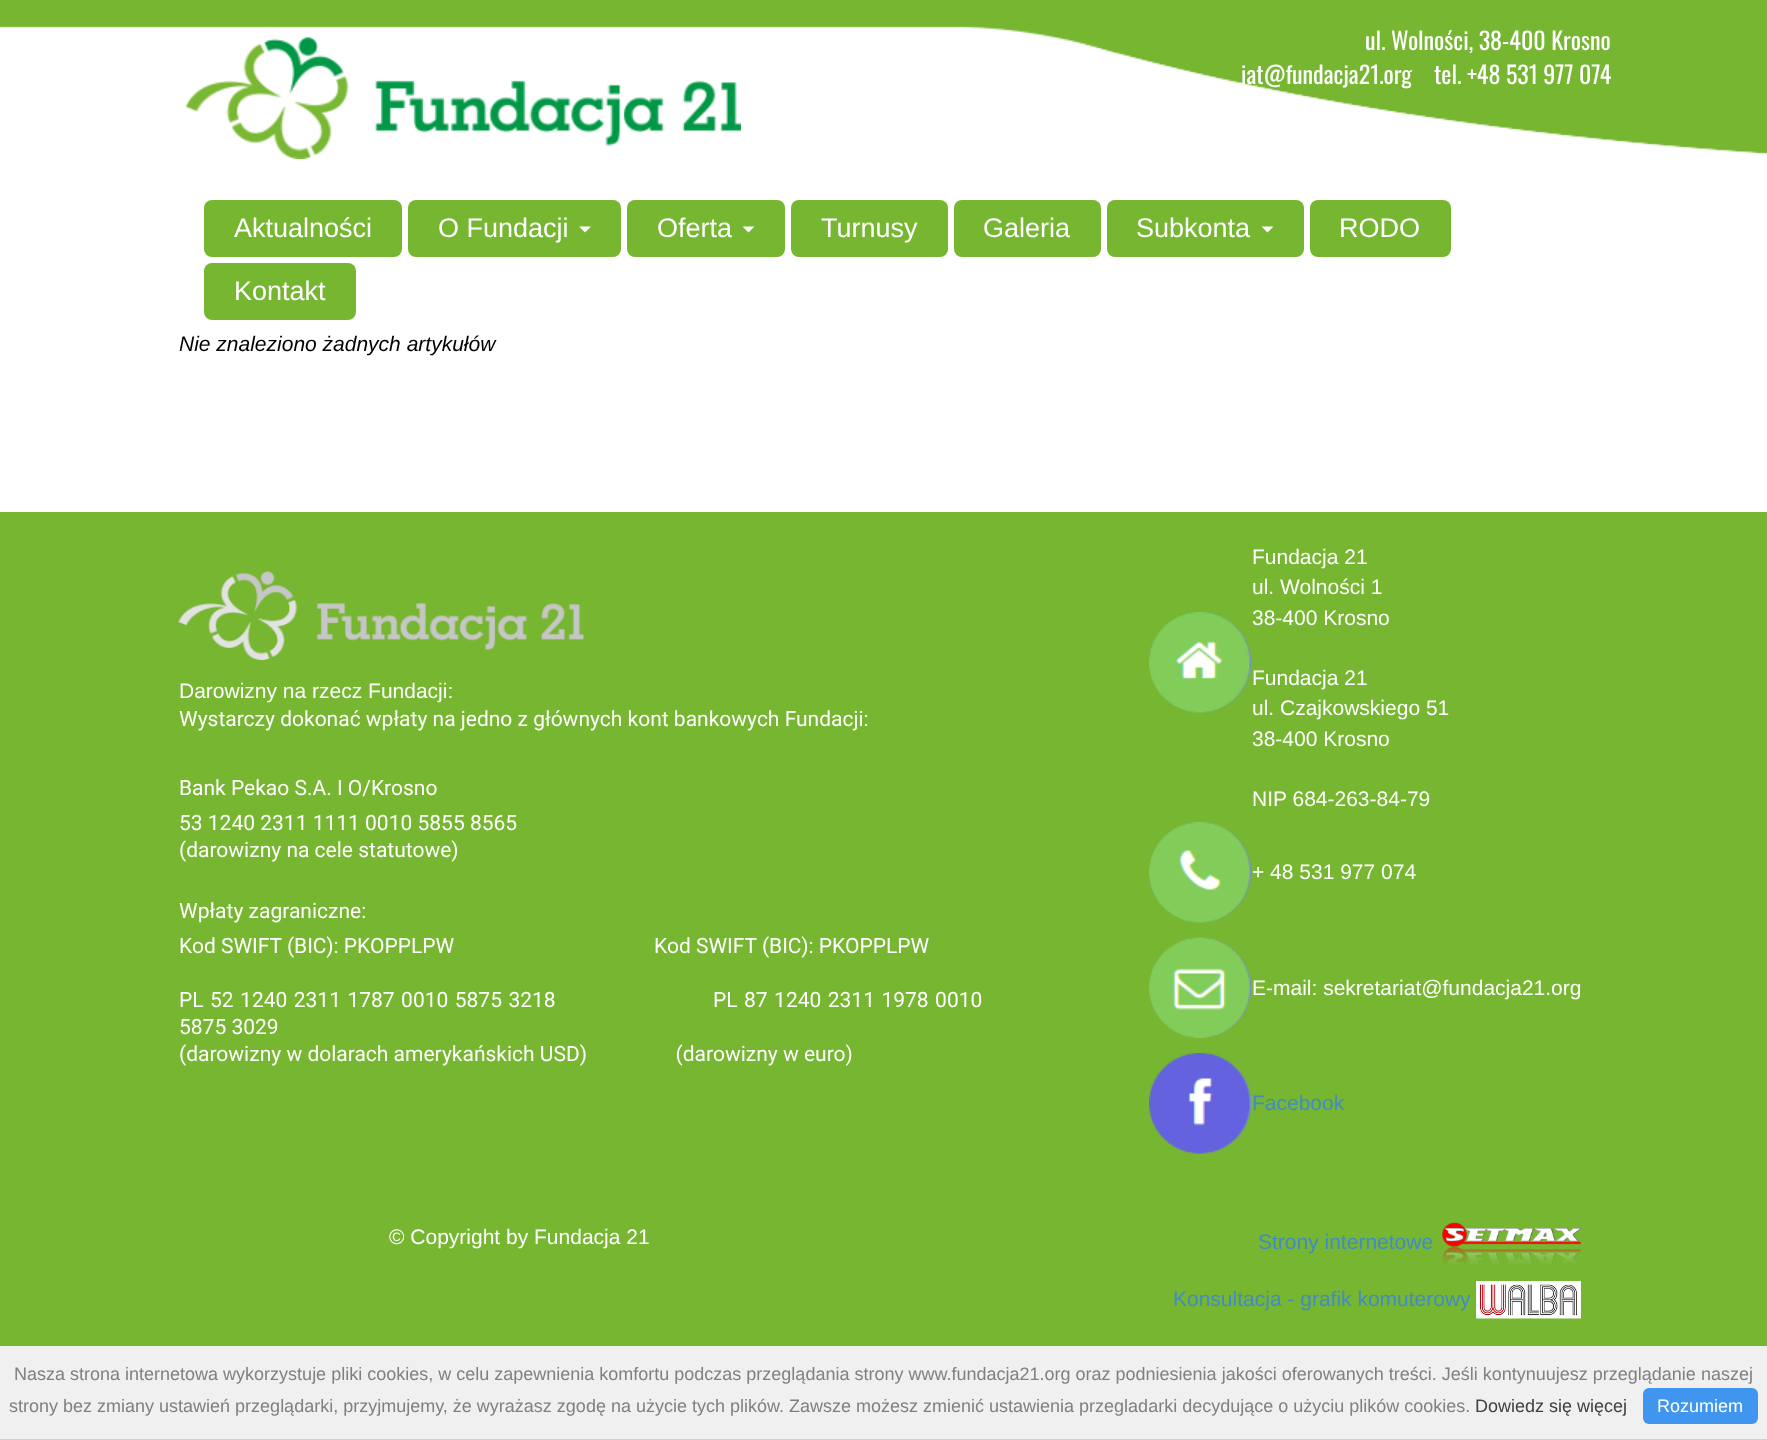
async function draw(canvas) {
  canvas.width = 1767;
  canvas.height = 1440;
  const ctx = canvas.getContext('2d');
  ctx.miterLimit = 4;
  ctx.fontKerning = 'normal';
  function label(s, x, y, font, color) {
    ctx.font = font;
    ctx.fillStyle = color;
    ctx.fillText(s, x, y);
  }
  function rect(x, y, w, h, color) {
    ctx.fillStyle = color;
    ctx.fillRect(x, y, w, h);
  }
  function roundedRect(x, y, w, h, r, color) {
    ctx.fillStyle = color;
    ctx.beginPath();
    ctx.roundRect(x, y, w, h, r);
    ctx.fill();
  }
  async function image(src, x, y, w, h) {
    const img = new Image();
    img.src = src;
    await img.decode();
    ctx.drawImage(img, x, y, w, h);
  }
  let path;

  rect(0, 0, 1767, 1440, '#fff');
  await image('assets/img1.png', 0, 0, 1767, 155);
  await image('assets/img2.png', 186, 37, 555, 122);
  label('ul. Wolności, 38-400 Krosno', 1365, 50, '24px Oswald', '#fff');
  label('iat@fundacja21.org    tel. +48 531 977 074', 1241, 84, '24px Oswald', '#fff');
  roundedRect(204, 200, 198, 57, 8, '#76b630');
  label('Aktualności', 234, 237, '27px Liberation Sans', '#fff');
  roundedRect(408, 200, 213, 57, 8, '#76b630');
  label('O Fundacji', 438, 237, '27px Liberation Sans', '#fff');
  path = new Path2D('M579 226.5H591L585 232.5Z');
  ctx.fill(path);
  roundedRect(627, 200, 158, 57, 8, '#76b630');
  label('Oferta', 657, 237, '27px Liberation Sans', '#fff');
  path = new Path2D('M742.5 226.5H754.5L748.5 232.5Z');
  ctx.fill(path);
  roundedRect(791, 200, 157, 57, 8, '#76b630');
  label('Turnusy', 821, 237, '27px Liberation Sans', '#fff');
  roundedRect(954, 200, 147, 57, 8, '#76b630');
  label('Galeria', 983, 237, '27px Liberation Sans', '#fff');
  roundedRect(1107, 200, 197, 57, 8, '#76b630');
  label('Subkonta', 1136, 237, '27px Liberation Sans', '#fff');
  path = new Path2D('M1261.5 226.5H1273.5L1267.5 232.5Z');
  ctx.fill(path);
  roundedRect(1310, 200, 141, 57, 8, '#76b630');
  label('RODO', 1339, 237, '27px Liberation Sans', '#fff');
  roundedRect(204, 263, 152, 57, 8, '#76b630');
  label('Kontakt', 234, 300, '27px Liberation Sans', '#fff');
  label('Nie znaleziono żadnych artykułów', 179, 351, 'italic 21px Liberation Sans', '#000');
  rect(0, 512, 1767, 834, '#76b630');
  await image('assets/img3.png', 178, 571, 406, 89);
  label('Darowizny na rzecz Fundacji:', 179, 698, '21px Liberation Sans', '#fff');
  label('Wystarczy dokonać wpłaty na jedno z głównych kont bankowych Fundacji:', 179, 726, '21px Roboto', '#fff');
  label('Bank Pekao S.A. I O/Krosno', 179, 795, '21px Roboto', '#fff');
  label('53 1240 2311 1111 0010 5855 8565', 179, 830, '21px Roboto', '#fff');
  label('(darowizny na cele statutowe)', 179, 857, '21px Roboto', '#fff');
  label('Wpłaty zagraniczne:', 179, 918, '21px Roboto', '#fff');
  label('Kod SWIFT (BIC): PKOPPLPW', 179, 953, '21px Roboto', '#fff');
  label('Kod SWIFT (BIC): PKOPPLPW', 654, 953, '21px Roboto', '#fff');
  ctx.wordSpacing = '1.25px';
  label('PL 52 1240 2311 1787 0010 5875 3218', 179, 1007, '21px Roboto', '#fff');
  label('PL 87 1240 2311 1978 0010', 713, 1007, '21px Roboto', '#fff');
  ctx.wordSpacing = '0px';
  label('5875 3029', 179, 1034, '21px Roboto', '#fff');
  label('(darowizny w dolarach amerykańskich USD)                 (darowizny w euro)', 179, 1061, '21px Roboto', '#fff');
  await image('assets/img4.png', 1149, 612, 102, 101);
  label('Fundacja 21', 1252, 564, '21px Liberation Sans', '#fff');
  label('ul. Wolności 1', 1252, 594, '21px Liberation Sans', '#fff');
  label('38-400 Krosno', 1252, 625, '21px Liberation Sans', '#fff');
  label('Fundacja 21', 1252, 685, '21px Liberation Sans', '#fff');
  label('ul. Czajkowskiego 51', 1252, 715, '21px Liberation Sans', '#fff');
  label('38-400 Krosno', 1252, 746, '21px Liberation Sans', '#fff');
  label('NIP 684-263-84-79', 1252, 806, '21px Liberation Sans', '#fff');
  await image('assets/img5.png', 1149, 822, 102, 101);
  label('+ 48 531 977 074', 1252, 879, '21px Liberation Sans', '#fff');
  await image('assets/img6.png', 1149, 937, 102, 101);
  label('E-mail: sekretariat@fundacja21.org', 1252, 995, '21px Liberation Sans', '#fff');
  await image('assets/img7.png', 1149, 1053, 102, 101);
  label('Facebook', 1252, 1110, '21px Liberation Sans', '#428bca');
  label('© Copyright by Fundacja 21', 389, 1244, '21px Liberation Sans', '#fff');
  label('Strony internetowe', 1258, 1249, '21px Liberation Sans', '#428bca');
  await image('assets/img8.png', 1442, 1222, 141, 44);
  label('Konsultacja - grafik komuterowy', 1173, 1306, '21px Liberation Sans', '#428bca');
  await image('assets/img9.png', 1476, 1281, 105, 38);
  rect(0, 1346, 1767, 93, '#f0f0f0');
  rect(0, 1439, 1767, 1, '#d3d0d0');
  label('Nasza strona internetowa wykorzystuje pliki cookies, w celu zapewnienia komfortu podczas przeglądania strony www.fundacja21.org oraz podniesienia jakości oferowanych treści. Jeśli kontynuujesz przeglądanie naszej', 14, 1380, '18px Liberation Sans', '#808080');
  label('strony bez zmiany ustawień przeglądarki, przyjmujemy, że wyrażasz zgodę na użycie tych plików. Zawsze możesz zmienić ustawienia przegladarki decydujące o użyciu plików cookies.', 9, 1412, '18px Liberation Sans', '#808080');
  label('Dowiedz się więcej', 1475, 1412, '18px Liberation Sans', '#404040');
  roundedRect(1643, 1388, 115, 36, 6, '#4096ee');
  label('Rozumiem', 1657, 1412, '18px Liberation Sans', '#fff');
}

draw(document.querySelector('canvas'));
